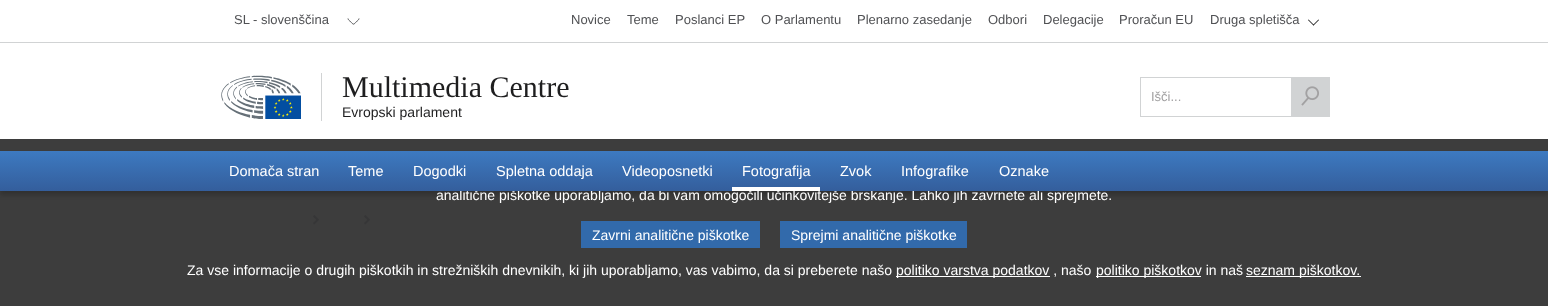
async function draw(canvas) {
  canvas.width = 1548;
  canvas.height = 306;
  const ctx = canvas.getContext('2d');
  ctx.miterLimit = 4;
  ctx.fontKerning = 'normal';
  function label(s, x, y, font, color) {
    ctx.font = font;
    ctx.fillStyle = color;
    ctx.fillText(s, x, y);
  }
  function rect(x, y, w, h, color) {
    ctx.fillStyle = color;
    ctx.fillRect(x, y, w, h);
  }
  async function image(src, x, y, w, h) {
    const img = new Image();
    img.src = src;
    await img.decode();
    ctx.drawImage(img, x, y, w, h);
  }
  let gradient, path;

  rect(0, 0, 1548, 306, '#fff');
  rect(0, 139, 1548, 167, '#3d3d3d');
  rect(0, 42, 1548, 1, '#d1d3d4');
  label('SL - slovenščina', 234, 24, '13px Liberation Sans', '#505154');
  path = new Path2D('M359 18.5C359 19.5 357.5 21 356.5 21.5C353.5 25 353.5 25 350.5 21.5C349.5 21 348 19.5 348 18.5');
  ctx.strokeStyle = '#505154';
  ctx.stroke(path);
  label('Novice', 571, 24, '13px Liberation Sans', '#505154');
  label('Teme', 627, 24, '13px Liberation Sans', '#505154');
  label('Poslanci EP', 675, 24, '13px Liberation Sans', '#505154');
  label('O Parlamentu', 761, 24, '13px Liberation Sans', '#505154');
  label('Plenarno zasedanje', 857, 24, '13px Liberation Sans', '#505154');
  label('Odbori', 988, 24, '13px Liberation Sans', '#505154');
  label('Delegacije', 1043, 24, '13px Liberation Sans', '#505154');
  label('Proračun EU', 1119, 24, '13px Liberation Sans', '#505154');
  label('Druga spletišča', 1210, 24, '13px Liberation Sans', '#505154');
  ctx.fillStyle = '#000';
  path = new Path2D('M1318.5 19.5L1319 20L1313.5 25.5L1313 25Z');
  ctx.fill(path);
  path = new Path2D('M1308.5 19.5L1314 25L1313.5 25.5L1308 20Z');
  ctx.fill(path);
  await image('assets/img1.png', 221, 75, 80, 44);
  rect(321, 73, 1, 48, '#d1d3d4');
  label('Multimedia Centre', 342, 97, '30px Liberation Serif', '#1e1e1f');
  label('Evropski parlament', 342, 117, '14px Liberation Sans', '#1e1e1f');
  ctx.strokeStyle = '#d1d3d4';
  ctx.strokeRect(1140.5, 77.5, 189, 39);
  label('Išči...', 1151, 101, '13px Liberation Sans', '#a2a1a2');
  rect(1291, 78, 38, 38, '#d1d3d4');
  await image('assets/img2.png', 1301, 86, 18, 20);
  ctx.fillStyle = '#00000033';
  ctx.filter = 'blur(2.5px)';
  ctx.beginPath();
  ctx.rect(0, 155, 1548, 40);
  ctx.fill();
  ctx.filter = 'none';
  label('analitične piškotke uporabljamo, da bi vam omogočili učinkovitejše brskanje. Lahko jih zavrnete ali sprejmete.', 436, 200, '14px Liberation Sans', '#fff');
  gradient = ctx.createLinearGradient(774, 151, 774, 191);
  gradient.addColorStop(0, '#3d7ac1');
  gradient.addColorStop(1, '#345e9c');
  ctx.fillStyle = gradient;
  ctx.fillRect(0, 151, 1548, 40);
  label('Domača stran', 229, 176, '14.5px Liberation Sans', '#fff');
  label('Teme', 348, 176, '14.5px Liberation Sans', '#fff');
  label('Dogodki', 413, 176, '14.5px Liberation Sans', '#fff');
  label('Spletna oddaja', 496, 176, '14.5px Liberation Sans', '#fff');
  label('Videoposnetki', 622, 176, '14.5px Liberation Sans', '#fff');
  label('Fotografija', 742, 176, '14.5px Liberation Sans', '#fff');
  rect(732, 187, 88, 4, '#fff');
  label('Zvok', 840, 176, '14.5px Liberation Sans', '#fff');
  label('Infografike', 901, 176, '14.5px Liberation Sans', '#fff');
  label('Oznake', 999, 176, '14.5px Liberation Sans', '#fff');
  await image('assets/img3.png', 313, 215, 6, 10);
  await image('assets/img3.png', 364, 215, 6, 10);
  rect(581, 221, 179, 27, '#326aab');
  label('Zavrni analitične piškotke', 592, 240, '14px Liberation Sans', '#fff');
  rect(780, 221, 187, 27, '#326aab');
  label('Sprejmi analitične piškotke', 791, 240, '14px Liberation Sans', '#fff');
  label('Za vse informacije o drugih piškotkih in strežniških dnevnikih, ki jih uporabljamo, vas vabimo, da si preberete našo', 187, 275, '14px Liberation Sans', '#fff');
  rect(896, 276, 154, 1, '#fff');
  label('politiko varstva podatkov , našo', 896, 275, '14px Liberation Sans', '#fff');
  rect(1096, 276, 105, 1, '#fff');
  label('politiko piškotkov in naš', 1096, 275, '14px Liberation Sans', '#fff');
  rect(1246, 276, 115, 1, '#fff');
  label('seznam piškotkov.', 1246, 275, '14px Liberation Sans', '#fff');
}

draw(document.querySelector('canvas'));
